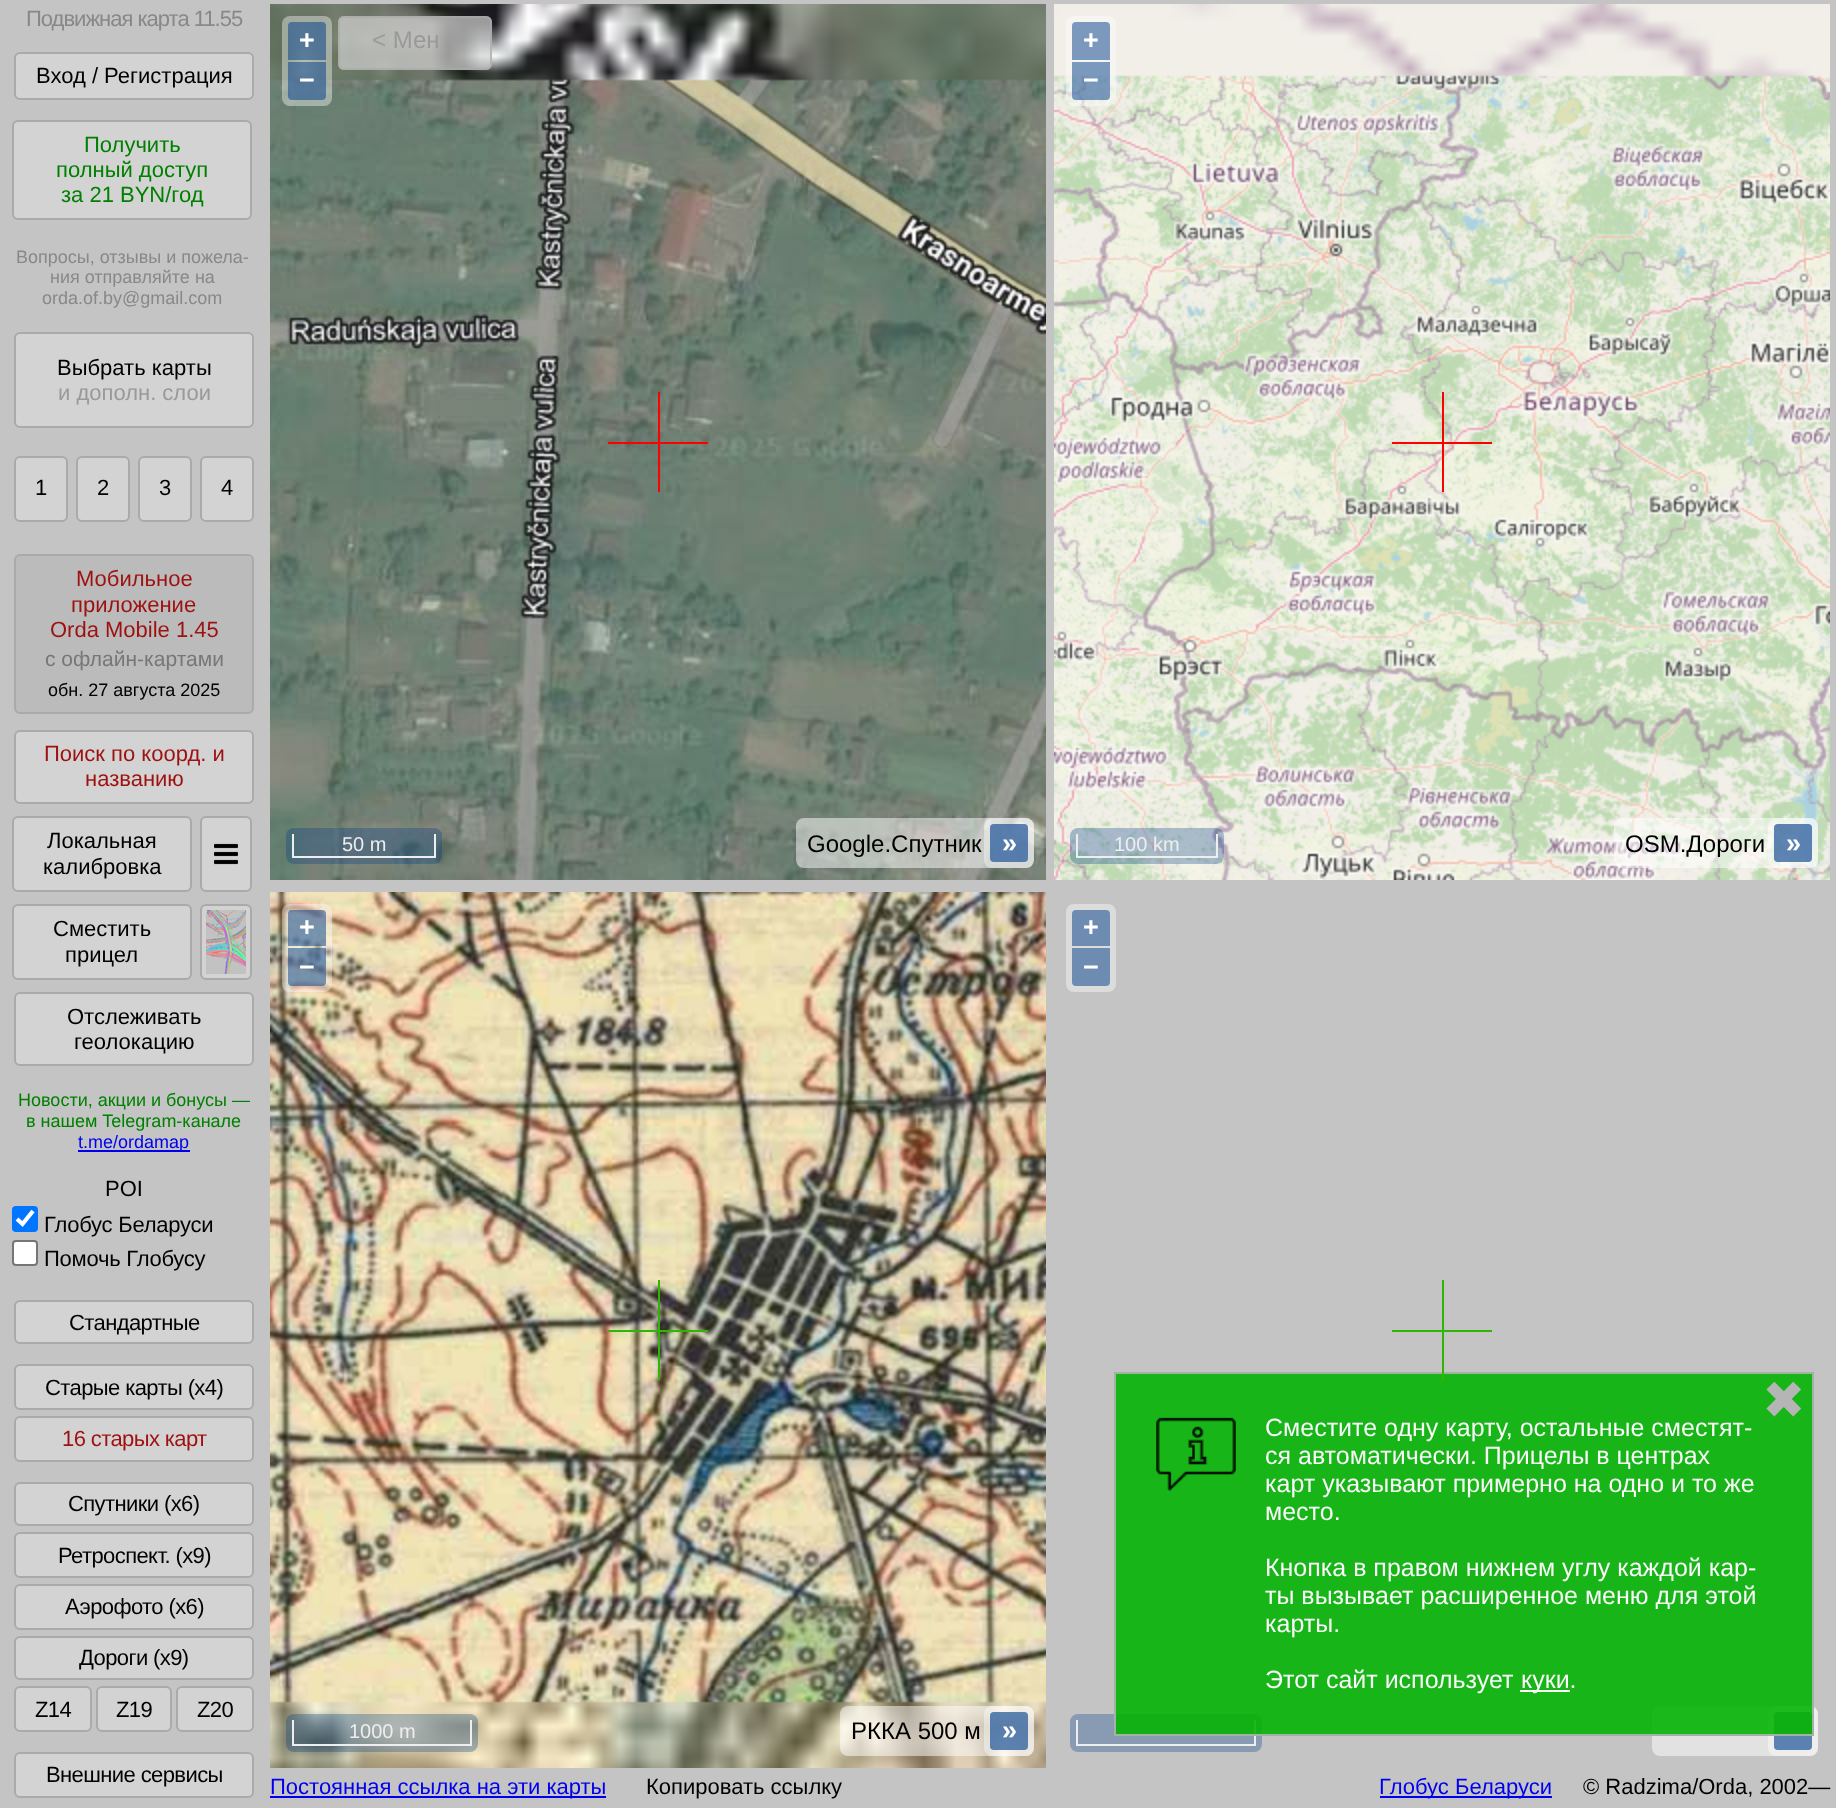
async function draw(canvas) {
  canvas.width = 1836;
  canvas.height = 1808;
  const ctx = canvas.getContext('2d');
  ctx.miterLimit = 4;
  ctx.fontKerning = 'normal';
  function label(s, x, y, font, color) {
    ctx.font = font;
    ctx.fillStyle = color;
    ctx.fillText(s, x, y);
  }
  function rect(x, y, w, h, color) {
    ctx.fillStyle = color;
    ctx.fillRect(x, y, w, h);
  }
  function roundedRect(x, y, w, h, r, color) {
    ctx.fillStyle = color;
    ctx.beginPath();
    ctx.roundRect(x, y, w, h, r);
    ctx.fill();
  }
  async function image(src, x, y, w, h) {
    const img = new Image();
    img.src = src;
    await img.decode();
    ctx.drawImage(img, x, y, w, h);
  }
  let path;

  rect(0, 0, 1836, 1808, '#c4c4c4');
  ctx.letterSpacing = '-1px';
  label('Подвижная карта 11.55', 26, 26, '22px Liberation Sans', '#888');
  ctx.fillStyle = '#d3d3d3';
  ctx.beginPath();
  ctx.roundRect(15, 53, 238, 46, 5);
  ctx.fill();
  ctx.strokeStyle = '#aaa';
  ctx.lineWidth = 2;
  ctx.stroke();
  ctx.letterSpacing = '0px';
  label('Вход / Регистрация', 36, 83, '22px Liberation Sans', '#000');
  ctx.fillStyle = '#d3d3d3';
  ctx.beginPath();
  ctx.roundRect(13, 121, 238, 98, 5);
  ctx.fill();
  ctx.stroke();
  label('Получить', 84, 152, '22px Liberation Sans', '#008000');
  label('полный доступ', 56, 177, '22px Liberation Sans', '#008000');
  label('за 21 BYN/год', 61, 202, '22px Liberation Sans', '#008000');
  label('Вопросы, отзывы и пожела-', 16, 263, '18px Liberation Sans', '#888');
  label('ния отправляйте на', 50, 283, '18px Liberation Sans', '#888');
  label('orda.of.by@gmail.com', 42, 304, '18px Liberation Sans', '#888');
  ctx.fillStyle = '#d3d3d3';
  ctx.beginPath();
  ctx.roundRect(15, 333, 238, 94, 5);
  ctx.fill();
  ctx.stroke();
  label('Выбрать карты', 57, 375, '22px Liberation Sans', '#000');
  label('и дополн. слои', 58, 400, '22px Liberation Sans', '#999');
  ctx.fillStyle = '#d3d3d3';
  ctx.beginPath();
  ctx.roundRect(15, 457, 52, 64, 5);
  ctx.fill();
  ctx.stroke();
  label('1', 35, 495, '22px Liberation Sans', '#000');
  ctx.fillStyle = '#d3d3d3';
  ctx.beginPath();
  ctx.roundRect(77, 457, 52, 64, 5);
  ctx.fill();
  ctx.stroke();
  label('2', 97, 495, '22px Liberation Sans', '#000');
  ctx.fillStyle = '#d3d3d3';
  ctx.beginPath();
  ctx.roundRect(139, 457, 52, 64, 5);
  ctx.fill();
  ctx.stroke();
  label('3', 159, 495, '22px Liberation Sans', '#000');
  ctx.fillStyle = '#d3d3d3';
  ctx.beginPath();
  ctx.roundRect(201, 457, 52, 64, 5);
  ctx.fill();
  ctx.stroke();
  label('4', 221, 495, '22px Liberation Sans', '#000');
  ctx.fillStyle = '#bbb';
  ctx.beginPath();
  ctx.roundRect(15, 555, 238, 158, 5);
  ctx.fill();
  ctx.stroke();
  label('Мобильное', 76, 586, '22px Liberation Sans', '#9e1111');
  label('приложение', 71, 612, '22px Liberation Sans', '#9e1111');
  label('Orda Mobile 1.45', 50, 637, '22px Liberation Sans', '#9e1111');
  label('с офлайн-картами', 45, 666, '21px Liberation Sans', '#777');
  label('обн. 27 августа 2025', 48, 696, '18px Liberation Sans', '#000');
  ctx.fillStyle = '#d3d3d3';
  ctx.beginPath();
  ctx.roundRect(15, 731, 238, 72, 5);
  ctx.fill();
  ctx.stroke();
  label('Поиск по коорд. и', 44, 761, '22px Liberation Sans', '#9e1111');
  label('названию', 85, 786, '22px Liberation Sans', '#9e1111');
  ctx.fillStyle = '#d3d3d3';
  ctx.beginPath();
  ctx.roundRect(13, 817, 178, 74, 5);
  ctx.fill();
  ctx.stroke();
  label('Локальная', 47, 848, '22px Liberation Sans', '#000');
  label('калибровка', 43, 874, '22px Liberation Sans', '#000');
  ctx.fillStyle = '#d3d3d3';
  ctx.beginPath();
  ctx.roundRect(201, 817, 50, 74, 5);
  ctx.fill();
  ctx.stroke();
  await image('assets/img1.png', 214, 843, 24, 22);
  ctx.beginPath();
  ctx.roundRect(13, 905, 178, 74, 5);
  ctx.fill();
  ctx.stroke();
  label('Сместить', 53, 936, '22px Liberation Sans', '#000');
  label('прицел', 65, 962, '22px Liberation Sans', '#000');
  ctx.fillStyle = '#d3d3d3';
  ctx.beginPath();
  ctx.roundRect(201, 905, 50, 74, 5);
  ctx.fill();
  ctx.stroke();
  await image('assets/img2.png', 206, 910, 40, 64);
  ctx.beginPath();
  ctx.roundRect(15, 993, 238, 72, 5);
  ctx.fill();
  ctx.stroke();
  label('Отслеживать', 67, 1024, '22px Liberation Sans', '#000');
  label('геолокацию', 74, 1049, '22px Liberation Sans', '#000');
  label('Новости, акции и бонусы —', 18, 1106, '18px Liberation Sans', '#008000');
  label('в нашем Telegram-канале', 26, 1127, '18px Liberation Sans', '#008000');
  rect(78, 1150, 112, 2, '#00e');
  label('t.me/ordamap', 78, 1148, '18px Liberation Sans', '#00e');
  label('POI', 105, 1196, '22px Liberation Sans', '#000');
  roundedRect(12, 1206, 26, 26, 4, '#0075ff');
  path = new Path2D('M17 1219L22.5 1224L33 1211');
  ctx.strokeStyle = '#fff';
  ctx.lineWidth = 4.2;
  ctx.stroke(path);
  ctx.letterSpacing = '-0.25px';
  label('Глобус Беларуси', 44, 1232, '22px Liberation Sans', '#000');
  ctx.fillStyle = '#fff';
  ctx.beginPath();
  ctx.roundRect(13, 1241, 24, 24, 3);
  ctx.fill();
  ctx.strokeStyle = '#767676';
  ctx.lineWidth = 2;
  ctx.stroke();
  label('Помочь Глобусу', 44, 1266, '22px Liberation Sans', '#000');
  ctx.fillStyle = '#d3d3d3';
  ctx.beginPath();
  ctx.roundRect(15, 1301, 238, 42, 5);
  ctx.fill();
  ctx.strokeStyle = '#aaa';
  ctx.stroke();
  ctx.letterSpacing = '-0.6px';
  label('Стандартные', 69, 1330, '22px Liberation Sans', '#000');
  ctx.fillStyle = '#d3d3d3';
  ctx.beginPath();
  ctx.roundRect(15, 1365, 238, 44, 5);
  ctx.fill();
  ctx.stroke();
  label('Старые карты (x4)', 45, 1395, '22px Liberation Sans', '#000');
  ctx.fillStyle = '#d3d3d3';
  ctx.beginPath();
  ctx.roundRect(15, 1417, 238, 44, 5);
  ctx.fill();
  ctx.stroke();
  label('16 старых карт', 62, 1446, '22px Liberation Sans', '#9e1111');
  ctx.fillStyle = '#d3d3d3';
  ctx.beginPath();
  ctx.roundRect(15, 1483, 238, 42, 5);
  ctx.fill();
  ctx.stroke();
  label('Спутники (x6)', 68, 1511, '22px Liberation Sans', '#000');
  ctx.fillStyle = '#d3d3d3';
  ctx.beginPath();
  ctx.roundRect(15, 1533, 238, 44, 5);
  ctx.fill();
  ctx.stroke();
  label('Ретроспект. (x9)', 58, 1563, '22px Liberation Sans', '#000');
  ctx.fillStyle = '#d3d3d3';
  ctx.beginPath();
  ctx.roundRect(15, 1585, 238, 44, 5);
  ctx.fill();
  ctx.stroke();
  label('Аэрофото (x6)', 65, 1614, '22px Liberation Sans', '#000');
  ctx.fillStyle = '#d3d3d3';
  ctx.beginPath();
  ctx.roundRect(15, 1637, 238, 42, 5);
  ctx.fill();
  ctx.stroke();
  label('Дороги (x9)', 79, 1665, '22px Liberation Sans', '#000');
  ctx.fillStyle = '#d3d3d3';
  ctx.beginPath();
  ctx.roundRect(15, 1687, 76, 44, 5);
  ctx.fill();
  ctx.stroke();
  label('Z14', 35, 1717, '22px Liberation Sans', '#000');
  ctx.fillStyle = '#d3d3d3';
  ctx.beginPath();
  ctx.roundRect(97, 1687, 74, 44, 5);
  ctx.fill();
  ctx.stroke();
  label('Z19', 116, 1717, '22px Liberation Sans', '#000');
  ctx.fillStyle = '#d3d3d3';
  ctx.beginPath();
  ctx.roundRect(177, 1687, 76, 44, 5);
  ctx.fill();
  ctx.stroke();
  label('Z20', 197, 1717, '22px Liberation Sans', '#000');
  ctx.fillStyle = '#d3d3d3';
  ctx.beginPath();
  ctx.roundRect(15, 1753, 238, 44, 5);
  ctx.fill();
  ctx.stroke();
  label('Внешние сервисы', 46, 1782, '22px Liberation Sans', '#000');
  await image('assets/img3.png', 270, 4, 776, 876);
  roundedRect(338, 16, 154, 54, 6, '#d3d3d3b3');
  ctx.beginPath();
  ctx.roundRect(339, 17, 152, 52, 5);
  ctx.strokeStyle = '#aaaaaab3';
  ctx.stroke();
  ctx.letterSpacing = '0px';
  label('< Мен', 372, 48, '24px Liberation Sans', '#999');
  roundedRect(282, 16, 50, 90, 8, '#ffffff66');
  ctx.fillStyle = '#003c8880';
  ctx.beginPath();
  ctx.roundRect(288, 22, 38, 38, [4, 4, 0, 0]);
  ctx.fill();
  label('+', 299, 49, 'bold 27px Liberation Sans', '#fff');
  ctx.fillStyle = '#003c8880';
  ctx.beginPath();
  ctx.roundRect(288, 62, 38, 38, [0, 0, 4, 4]);
  ctx.fill();
  label('−', 299, 89, 'bold 27px Liberation Sans', '#fff');
  roundedRect(984, 818, 50, 50, 8, '#ffffff66');
  roundedRect(990, 824, 38, 38, 4, '#003c8880');
  roundedRect(286, 828, 156, 36, 8, '#003c884d');
  rect(434, 834, 2, 24, '#eee');
  rect(292, 856, 144, 2, '#eee');
  rect(292, 834, 2, 24, '#eee');
  label('50 m', 342, 851, '20px Liberation Sans', '#eee');
  roundedRect(796, 818, 238, 50, 8, '#ffffff80');
  label('Google.Спутник', 807, 852, '24px Liberation Sans', '#000');
  roundedRect(990, 824, 38, 38, 4, '#003c8880');
  label('»', 1002, 852, 'bold 27px Liberation Sans', '#fff');
  rect(658, 392, 2, 100, '#f00');
  rect(608, 442, 100, 2, '#f00');
  await image('assets/img4.png', 1054, 4, 776, 876);
  roundedRect(1066, 16, 50, 90, 8, '#ffffff66');
  ctx.fillStyle = '#7c99bd';
  ctx.beginPath();
  ctx.roundRect(1072, 22, 38, 38, [4, 4, 0, 0]);
  ctx.fill();
  label('+', 1083, 49, 'bold 27px Liberation Sans', '#fff');
  ctx.fillStyle = '#003c8880';
  ctx.beginPath();
  ctx.roundRect(1072, 62, 38, 38, [0, 0, 4, 4]);
  ctx.fill();
  label('−', 1083, 89, 'bold 27px Liberation Sans', '#fff');
  roundedRect(1768, 818, 50, 50, 8, '#ffffff66');
  roundedRect(1774, 824, 38, 38, 4, '#003c8880');
  roundedRect(1070, 828, 154, 36, 8, '#003c884d');
  rect(1216, 834, 2, 24, '#eee');
  rect(1076, 856, 142, 2, '#eee');
  rect(1076, 834, 2, 24, '#eee');
  label('100 km', 1114, 851, '20px Liberation Sans', '#eee');
  roundedRect(1614, 818, 204, 50, 8, '#ffffff80');
  label('OSM.Дороги', 1625, 852, '24px Liberation Sans', '#000');
  roundedRect(1774, 824, 38, 38, 4, '#003c8880');
  label('»', 1786, 852, 'bold 27px Liberation Sans', '#fff');
  rect(1442, 392, 2, 100, '#f00');
  rect(1392, 442, 100, 2, '#f00');
  await image('assets/img5.png', 270, 892, 776, 876);
  roundedRect(282, 904, 50, 88, 8, '#ffffff66');
  ctx.fillStyle = '#003c8880';
  ctx.beginPath();
  ctx.roundRect(288, 910, 38, 36, [4, 4, 0, 0]);
  ctx.fill();
  label('+', 299, 936, 'bold 27px Liberation Sans', '#fff');
  ctx.fillStyle = '#003c8880';
  ctx.beginPath();
  ctx.roundRect(288, 948, 38, 38, [0, 0, 4, 4]);
  ctx.fill();
  label('−', 299, 976, 'bold 27px Liberation Sans', '#fff');
  roundedRect(984, 1706, 50, 50, 8, '#ffffff66');
  roundedRect(990, 1712, 38, 38, 4, '#003c8880');
  roundedRect(286, 1714, 192, 38, 8, '#003c884d');
  rect(470, 1720, 2, 26, '#eee');
  rect(292, 1744, 180, 2, '#eee');
  rect(292, 1720, 2, 26, '#eee');
  label('1000 m', 349, 1738, '20px Liberation Sans', '#eee');
  roundedRect(840, 1706, 194, 50, 8, '#ffffff80');
  label('РККА 500 м', 851, 1739, '24px Liberation Sans', '#000');
  roundedRect(990, 1712, 38, 38, 4, '#003c8880');
  label('»', 1002, 1739, 'bold 27px Liberation Sans', '#fff');
  rect(658, 1280, 2, 100, '#31b404');
  rect(608, 1330, 100, 2, '#31b404');
  roundedRect(1066, 904, 50, 88, 8, '#dcdcdc');
  ctx.fillStyle = '#6e8cb2';
  ctx.beginPath();
  ctx.roundRect(1072, 910, 38, 36, [4, 4, 0, 0]);
  ctx.fill();
  label('+', 1083, 936, 'bold 27px Liberation Sans', '#fff');
  ctx.fillStyle = '#6e8cb2';
  ctx.beginPath();
  ctx.roundRect(1072, 948, 38, 38, [0, 0, 4, 4]);
  ctx.fill();
  label('−', 1083, 976, 'bold 27px Liberation Sans', '#fff');
  roundedRect(1768, 1706, 50, 50, 8, '#dcdcdc');
  roundedRect(1774, 1712, 38, 38, 4, '#6e8cb2');
  roundedRect(1652, 1706, 166, 50, 8, '#ffffff80');
  roundedRect(1774, 1712, 38, 38, 4, '#003c8880');
  roundedRect(1070, 1714, 192, 38, 8, '#899bb2');
  rect(1254, 1720, 2, 26, '#eee');
  rect(1076, 1744, 180, 2, '#eee');
  rect(1076, 1720, 2, 26, '#eee');
  rect(1114, 1372, 700, 364, '#04b404e6');
  ctx.strokeStyle = '#b3b3b3e6';
  ctx.strokeRect(1115, 1373, 698, 362);
  rect(1442, 1280, 2, 100, '#31b404');
  rect(1392, 1330, 100, 2, '#31b404');
  rect(270, 1796, 336, 2, '#00e');
  label('Постоянная ссылка на эти карты', 270, 1794, '22px Liberation Sans', '#00e');
  label('Копировать ссылку', 646, 1794, '22px Liberation Sans', '#000');
  rect(1380, 1796, 172, 2, '#00e');
  label('Глобус Беларуси', 1379, 1794, '22px Liberation Sans', '#00e');
  label('© Radzima/Orda, 2002—', 1583, 1794, '22px Liberation Sans', '#000');
  label('✖', 1762, 1418, '52px DejaVu Sans', '#b5b5b5');
  await image('assets/img6.png', 1156, 1417, 80, 74);
  label('Сместите одну карту, остальные сместят-', 1265, 1436, '25px Liberation Sans', '#f9f9f9');
  label('ся автоматически. Прицелы в центрах', 1265, 1464, '25px Liberation Sans', '#f9f9f9');
  label('карт указывают примерно на одно и то же', 1265, 1492, '25px Liberation Sans', '#f9f9f9');
  label('место.', 1265, 1520, '25px Liberation Sans', '#f9f9f9');
  label('Кнопка в правом нижнем углу каждой кар-', 1265, 1576, '25px Liberation Sans', '#f9f9f9');
  label('ты вызывает расширенное меню для этой', 1265, 1604, '25px Liberation Sans', '#f9f9f9');
  label('карты.', 1265, 1632, '25px Liberation Sans', '#f9f9f9');
  label('Этот сайт использует', 1265, 1688, '25px Liberation Sans', '#f9f9f9');
  rect(1520, 1690, 50, 2, '#f9f9f9');
  label('куки.', 1521, 1688, '25px Liberation Sans', '#f9f9f9');
}

draw(document.querySelector('canvas'));
